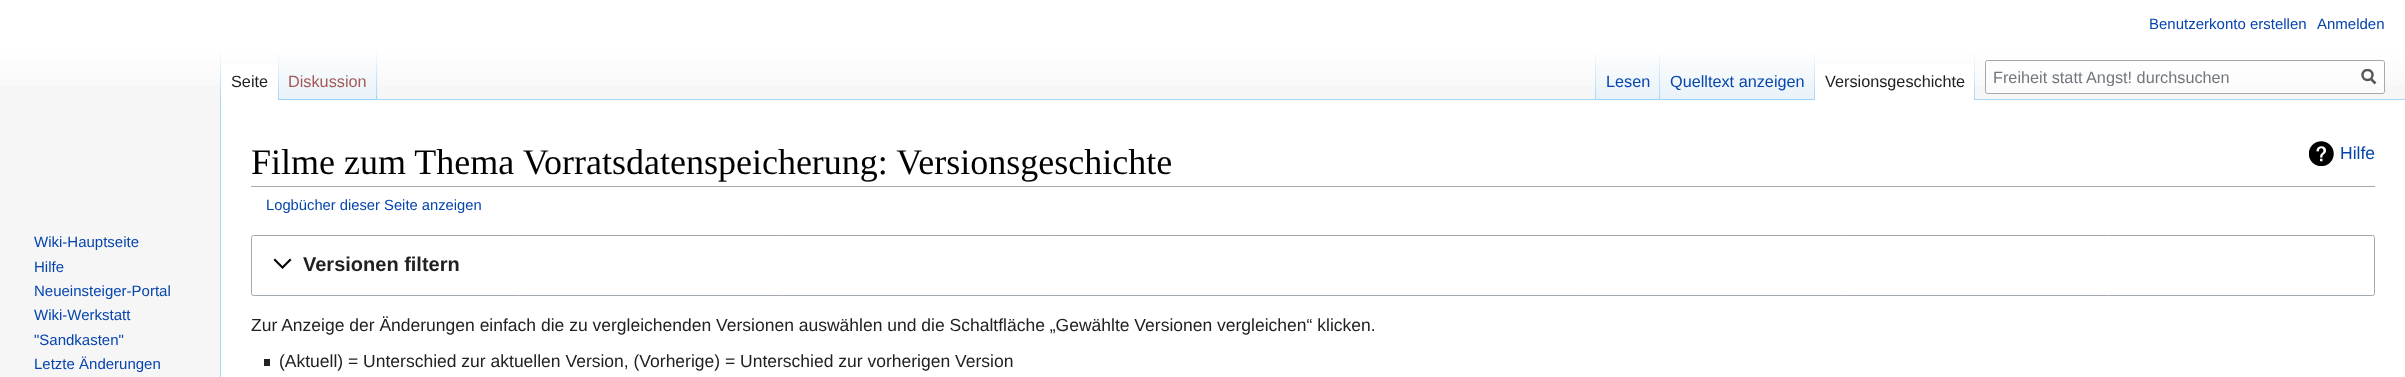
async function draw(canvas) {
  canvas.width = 2405;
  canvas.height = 377;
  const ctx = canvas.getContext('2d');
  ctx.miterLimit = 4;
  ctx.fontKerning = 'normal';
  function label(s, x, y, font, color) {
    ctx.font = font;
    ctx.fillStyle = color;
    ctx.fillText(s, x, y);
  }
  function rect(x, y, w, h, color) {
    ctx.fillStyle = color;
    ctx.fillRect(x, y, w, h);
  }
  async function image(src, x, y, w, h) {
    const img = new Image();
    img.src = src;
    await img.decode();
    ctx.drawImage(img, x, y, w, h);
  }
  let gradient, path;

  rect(0, 0, 2405, 377, '#f6f6f6');
  gradient = ctx.createLinearGradient(1203, 0, 1203, 100);
  gradient.addColorStop(0.5, '#fff');
  gradient.addColorStop(1, '#f6f6f6');
  ctx.fillStyle = gradient;
  ctx.fillRect(0, 0, 2405, 86);
  label('Benutzerkonto erstellen', 2149, 29, '15px Liberation Sans', '#0645ad');
  label('Anmelden', 2317, 29, '15px Liberation Sans', '#0645ad');
  rect(220, 99, 1, 278, '#a7d7f9');
  gradient = ctx.createLinearGradient(221, 50, 221, 100);
  gradient.addColorStop(0, '#a7d7f900');
  gradient.addColorStop(1, '#a7d7f9');
  ctx.fillStyle = gradient;
  ctx.fillRect(220, 50, 1, 50);
  rect(221, 64, 57, 36, '#fff');
  gradient = ctx.createLinearGradient(278, 50, 278, 100);
  gradient.addColorStop(0, '#fff');
  gradient.addColorStop(1, '#a7d7f9');
  ctx.fillStyle = gradient;
  ctx.fillRect(278, 50, 1, 50);
  label('Seite', 231, 87, '16.25px Liberation Sans', '#202122');
  gradient = ctx.createLinearGradient(328, 100, 328, 50);
  gradient.addColorStop(0, '#77c1f6');
  gradient.addColorStop(0.03, '#e8f2f8');
  gradient.addColorStop(1, '#fff');
  ctx.fillStyle = gradient;
  ctx.fillRect(279, 57, 99, 43);
  gradient = ctx.createLinearGradient(377, 50, 377, 100);
  gradient.addColorStop(0, '#a7d7f900');
  gradient.addColorStop(1, '#a7d7f9');
  ctx.fillStyle = gradient;
  ctx.fillRect(376, 50, 1, 50);
  label('Diskussion', 288, 87, '16.25px Liberation Sans', '#a55858');
  rect(378, 99, 2027, 1, '#a7d7f9');
  gradient = ctx.createLinearGradient(1596, 50, 1596, 100);
  gradient.addColorStop(0, '#a7d7f900');
  gradient.addColorStop(1, '#a7d7f9');
  ctx.fillStyle = gradient;
  ctx.fillRect(1595, 50, 1, 50);
  gradient = ctx.createLinearGradient(1628, 100, 1628, 50);
  gradient.addColorStop(0, '#77c1f6');
  gradient.addColorStop(0.03, '#e8f2f8');
  gradient.addColorStop(1, '#fff');
  ctx.fillStyle = gradient;
  ctx.fillRect(1596, 57, 64, 43);
  gradient = ctx.createLinearGradient(1659, 50, 1659, 100);
  gradient.addColorStop(0, '#a7d7f900');
  gradient.addColorStop(1, '#a7d7f9');
  ctx.fillStyle = gradient;
  ctx.fillRect(1659, 50, 1, 50);
  label('Lesen', 1606, 87, '16.25px Liberation Sans', '#0645ad');
  gradient = ctx.createLinearGradient(1738, 100, 1738, 50);
  gradient.addColorStop(0, '#77c1f6');
  gradient.addColorStop(0.03, '#e8f2f8');
  gradient.addColorStop(1, '#fff');
  ctx.fillStyle = gradient;
  ctx.fillRect(1660, 57, 155, 43);
  gradient = ctx.createLinearGradient(1814, 50, 1814, 100);
  gradient.addColorStop(0, '#a7d7f900');
  gradient.addColorStop(1, '#a7d7f9');
  ctx.fillStyle = gradient;
  ctx.fillRect(1814, 50, 1, 50);
  label('Quelltext anzeigen', 1670, 87, '16.25px Liberation Sans', '#0645ad');
  rect(1815, 64, 159, 36, '#fff');
  gradient = ctx.createLinearGradient(1974, 50, 1974, 100);
  gradient.addColorStop(0, '#fff');
  gradient.addColorStop(1, '#a7d7f9');
  ctx.fillStyle = gradient;
  ctx.fillRect(1974, 50, 1, 50);
  label('Versionsgeschichte', 1825, 87, '16.25px Liberation Sans', '#202122');
  ctx.fillStyle = '#ffffff80';
  ctx.beginPath();
  ctx.roundRect(1985.5, 60.5, 399, 33, 2);
  ctx.fill();
  ctx.strokeStyle = '#a2a9b1';
  ctx.stroke();
  ctx.save();
  ctx.beginPath();
  ctx.rect(1993, 68, 361, 18);
  ctx.clip();
  label('Freiheit statt Angst! durchsuchen', 1993, 83, '16.25px Liberation Sans', '#72777d');
  ctx.restore();
  path = new Path2D('M2375.5 83.5L2370.5 78.5');
  ctx.strokeStyle = '#54595d';
  ctx.lineWidth = 2.5;
  ctx.stroke(path);
  ctx.save();
  ctx.beginPath();
  ctx.rect(2361, 69, 15, 16);
  ctx.clip();
  ctx.beginPath();
  ctx.arc(2367.5, 75, 5, 0, 2 * Math.PI);
  ctx.stroke();
  ctx.restore();
  label('Wiki-Hauptseite', 34, 247, '15px Liberation Sans', '#0645ad');
  label('Hilfe', 34, 272, '15px Liberation Sans', '#0645ad');
  label('Neueinsteiger-Portal', 34, 296, '15px Liberation Sans', '#0645ad');
  label('Wiki-Werkstatt', 34, 320, '15px Liberation Sans', '#0645ad');
  label('"Sandkasten"', 34, 345, '15px Liberation Sans', '#0645ad');
  label('Letzte Änderungen', 34, 369, '15px Liberation Sans', '#0645ad');
  rect(221, 100, 2184, 277, '#fff');
  rect(251, 186, 2124, 1, '#a2a9b1');
  label('Filme zum Thema Vorratsdatenspeicherung: Versionsgeschichte', 251, 174, '36px Liberation Serif', '#000');
  await image('assets/img1.png', 2309, 141, 25, 25);
  label('Hilfe', 2340, 159, '17.5px Liberation Sans', '#0645ad');
  label('Logbücher dieser Seite anzeigen', 266, 210, '14.75px Liberation Sans', '#0645ad');
  ctx.beginPath();
  ctx.roundRect(251.5, 235.5, 2123, 60, 2);
  ctx.strokeStyle = '#a2a9b1';
  ctx.lineWidth = 1;
  ctx.stroke();
  ctx.fillStyle = '#000';
  path = new Path2D('M290 258.5L282.5 266L275 258.5L273.5 260L282.5 269L291.5 260Z');
  ctx.fill(path);
  label('Versionen filtern', 303, 271, 'bold 20px Liberation Sans', '#202122');
  label('Zur Anzeige der Änderungen einfach die zu vergleichenden Versionen auswählen und die Schaltfläche „Gewählte Versionen vergleichen“ klicken.', 251, 331, '17.5px Liberation Sans', '#202122');
  rect(264, 359, 6, 7, '#202122');
  label('(Aktuell) = Unterschied zur aktuellen Version, (Vorherige) = Unterschied zur vorherigen Version', 279, 367, '17.5px Liberation Sans', '#202122');
}

draw(document.querySelector('canvas'));
